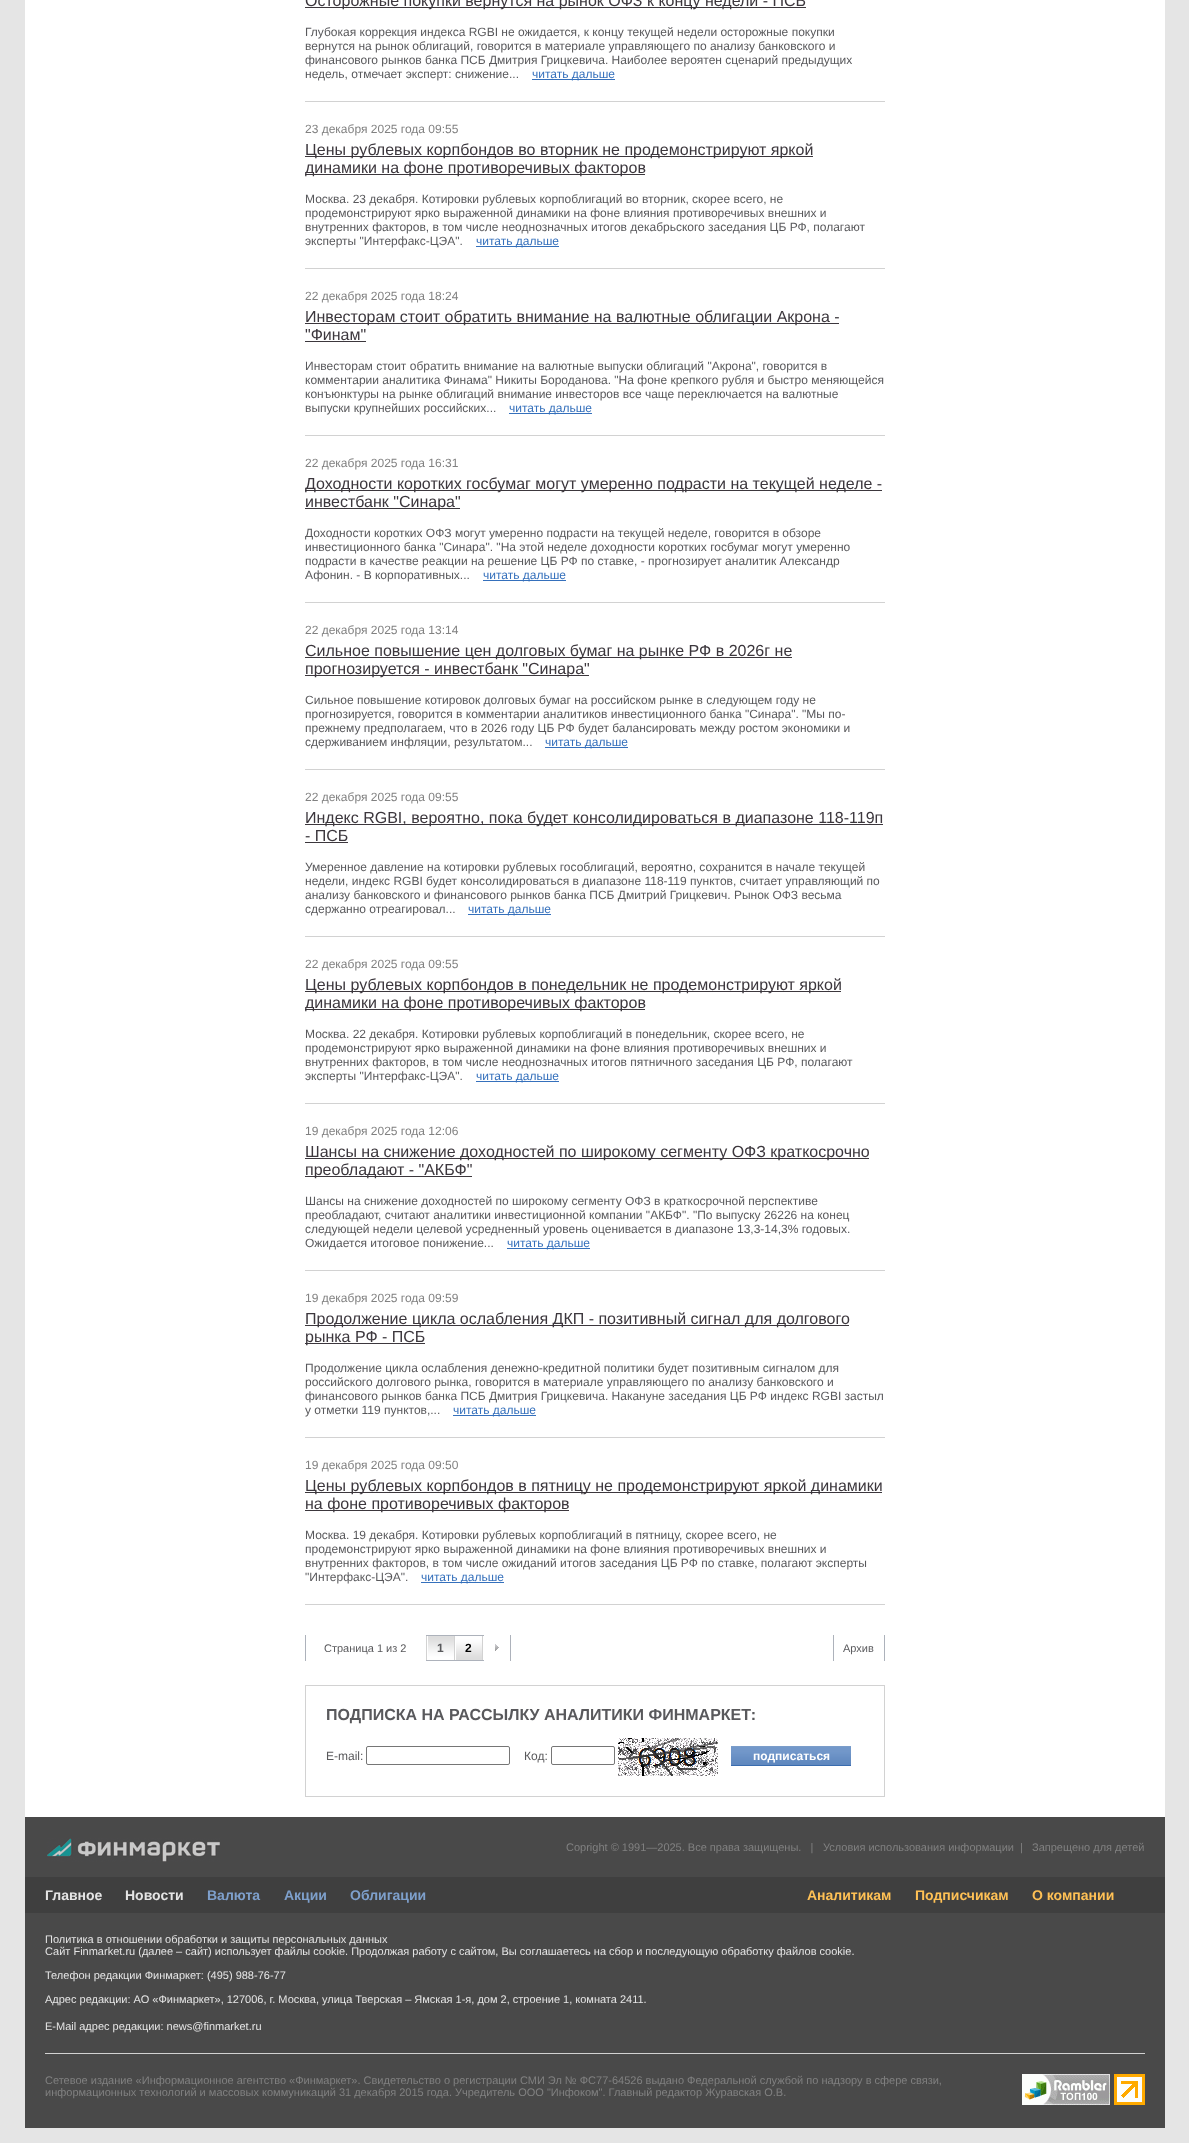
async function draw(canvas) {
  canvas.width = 1189;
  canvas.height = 2143;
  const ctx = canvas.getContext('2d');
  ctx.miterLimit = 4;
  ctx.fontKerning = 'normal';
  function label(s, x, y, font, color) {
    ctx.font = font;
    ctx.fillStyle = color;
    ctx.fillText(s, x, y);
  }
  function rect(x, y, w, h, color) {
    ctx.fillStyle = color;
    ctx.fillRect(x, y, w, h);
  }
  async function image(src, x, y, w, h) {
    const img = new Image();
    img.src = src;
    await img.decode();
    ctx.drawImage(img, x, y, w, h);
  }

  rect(0, 0, 1189, 2143, '#e5e5e5');
  rect(25, 0, 1140, 1817, '#fff');
  rect(305, 7, 501, 1, '#3c373d');
  label('Осторожные покупки вернутся на рынок ОФЗ к концу недели - ПСБ', 305, 6, '16px Liberation Sans', '#3c373d');
  label('Глубокая коррекция индекса RGBI не ожидается, к концу текущей недели осторожные покупки', 305, 36, '12px Liberation Sans', '#59595c');
  label('вернутся на рынок облигаций, говорится в материале управляющего по анализу банковского и', 305, 50, '12px Liberation Sans', '#59595c');
  label('финансового рынков банка ПСБ Дмитрия Грицкевича. Наиболее вероятен сценарий предыдущих', 305, 64, '12px Liberation Sans', '#59595c');
  label('недель, отмечает эксперт: снижение...', 305, 78, '12px Liberation Sans', '#59595c');
  rect(532, 79, 83, 1, '#3570bc');
  label('читать дальше', 532, 78, '12px Liberation Sans', '#3570bc');
  rect(305, 101, 580, 1, '#d2d2d2');
  label('23 декабря 2025 года 09:55', 305, 133, '12px Liberation Sans', '#818181');
  rect(305, 156, 508, 1, '#3c373d');
  label('Цены рублевых корпбондов во вторник не продемонстрируют яркой', 305, 155, '16px Liberation Sans', '#3c373d');
  rect(305, 174, 340, 1, '#3c373d');
  ctx.save();
  ctx.beginPath();
  ctx.rect(305, 0, 580, 1625);
  ctx.clip();
  label('динамики на фоне противоречивых факторов', 305, 173, '16px Liberation Sans', '#3c373d');
  ctx.restore();
  label('Москва. 23 декабря. Котировки рублевых корпоблигаций во вторник, скорее всего, не', 305, 203, '12px Liberation Sans', '#59595c');
  label('продемонстрируют ярко выраженной динамики на фоне влияния противоречивых внешних и', 305, 217, '12px Liberation Sans', '#59595c');
  label('внутренних факторов, в том числе неоднозначных итогов декабрьского заседания ЦБ РФ, полагают', 305, 231, '12px Liberation Sans', '#59595c');
  label('эксперты "Интерфакс-ЦЭА".', 305, 245, '12px Liberation Sans', '#59595c');
  rect(476, 246, 83, 1, '#3570bc');
  label('читать дальше', 476, 245, '12px Liberation Sans', '#3570bc');
  rect(305, 268, 580, 1, '#d2d2d2');
  label('22 декабря 2025 года 18:24', 305, 300, '12px Liberation Sans', '#818181');
  rect(305, 323, 534, 1, '#3c373d');
  label('Инвесторам стоит обратить внимание на валютные облигации Акрона -', 305, 322, '16px Liberation Sans', '#3c373d');
  label('"Финам"', 305, 340, '16px Liberation Sans', '#3c373d');
  rect(305, 341, 61, 1, '#3c373d');
  label('Инвесторам стоит обратить внимание на валютные выпуски облигаций "Акрона", говорится в', 305, 370, '12px Liberation Sans', '#59595c');
  label('комментарии аналитика Финама" Никиты Бороданова. "На фоне крепкого рубля и быстро меняющейся', 305, 384, '12px Liberation Sans', '#59595c');
  label('конъюнктуры на рынке облигаций внимание инвесторов все чаще переключается на валютные', 305, 398, '12px Liberation Sans', '#59595c');
  label('выпуски крупнейших российских...', 305, 412, '12px Liberation Sans', '#59595c');
  rect(509, 413, 83, 1, '#3570bc');
  label('читать дальше', 509, 412, '12px Liberation Sans', '#3570bc');
  rect(305, 435, 580, 1, '#d2d2d2');
  label('22 декабря 2025 года 16:31', 305, 467, '12px Liberation Sans', '#818181');
  rect(305, 490, 577, 1, '#3c373d');
  ctx.save();
  ctx.beginPath();
  ctx.rect(305, 0, 580, 1625);
  ctx.clip();
  label('Доходности коротких госбумаг могут умеренно подрасти на текущей неделе -', 305, 489, '16px Liberation Sans', '#3c373d');
  ctx.restore();
  rect(305, 508, 155, 1, '#3c373d');
  label('инвестбанк "Синара"', 305, 507, '16px Liberation Sans', '#3c373d');
  ctx.save();
  ctx.beginPath();
  ctx.rect(305, 0, 580, 1625);
  ctx.clip();
  label('Доходности коротких ОФЗ могут умеренно подрасти на текущей неделе, говорится в обзоре', 305, 537, '12px Liberation Sans', '#59595c');
  ctx.restore();
  label('инвестиционного банка "Синара". "На этой неделе доходности коротких госбумаг могут умеренно', 305, 551, '12px Liberation Sans', '#59595c');
  label('подрасти в качестве реакции на решение ЦБ РФ по ставке, - прогнозирует аналитик Александр', 305, 565, '12px Liberation Sans', '#59595c');
  label('Афонин. - В корпоративных...', 305, 579, '12px Liberation Sans', '#59595c');
  rect(483, 580, 83, 1, '#3570bc');
  label('читать дальше', 483, 579, '12px Liberation Sans', '#3570bc');
  rect(305, 602, 580, 1, '#d2d2d2');
  label('22 декабря 2025 года 13:14', 305, 634, '12px Liberation Sans', '#818181');
  rect(305, 657, 487, 1, '#3c373d');
  label('Сильное повышение цен долговых бумаг на рынке РФ в 2026г не', 305, 656, '16px Liberation Sans', '#3c373d');
  rect(305, 675, 284, 1, '#3c373d');
  label('прогнозируется - инвестбанк "Синара"', 305, 674, '16px Liberation Sans', '#3c373d');
  label('Сильное повышение котировок долговых бумаг на российском рынке в следующем году не', 305, 704, '12px Liberation Sans', '#59595c');
  label('прогнозируется, говорится в комментарии аналитиков инвестиционного банка "Синара". "Мы по-', 305, 718, '12px Liberation Sans', '#59595c');
  label('прежнему предполагаем, что в 2026 году ЦБ РФ будет балансировать между ростом экономики и', 305, 732, '12px Liberation Sans', '#59595c');
  label('сдерживанием инфляции, результатом...', 305, 746, '12px Liberation Sans', '#59595c');
  rect(545, 747, 83, 1, '#3570bc');
  label('читать дальше', 545, 746, '12px Liberation Sans', '#3570bc');
  rect(305, 769, 580, 1, '#d2d2d2');
  label('22 декабря 2025 года 09:55', 305, 801, '12px Liberation Sans', '#818181');
  rect(305, 824, 578, 1, '#3c373d');
  label('Индекс RGBI, вероятно, пока будет консолидироваться в диапазоне 118-119п', 305, 823, '16px Liberation Sans', '#3c373d');
  label('- ПСБ', 305, 841, '16px Liberation Sans', '#3c373d');
  rect(305, 842, 43, 1, '#3c373d');
  label('Умеренное давление на котировки рублевых гособлигаций, вероятно, сохранится в начале текущей', 305, 871, '12px Liberation Sans', '#59595c');
  label('недели, индекс RGBI будет консолидироваться в диапазоне 118-119 пунктов, считает управляющий по', 305, 885, '12px Liberation Sans', '#59595c');
  label('анализу банковского и финансового рынков банка ПСБ Дмитрий Грицкевич. Рынок ОФЗ весьма', 305, 899, '12px Liberation Sans', '#59595c');
  label('сдержанно отреагировал...', 305, 913, '12px Liberation Sans', '#59595c');
  rect(468, 914, 83, 1, '#3570bc');
  label('читать дальше', 468, 913, '12px Liberation Sans', '#3570bc');
  rect(305, 936, 580, 1, '#d2d2d2');
  label('22 декабря 2025 года 09:55', 305, 968, '12px Liberation Sans', '#818181');
  rect(305, 991, 536, 1, '#3c373d');
  label('Цены рублевых корпбондов в понедельник не продемонстрируют яркой', 305, 990, '16px Liberation Sans', '#3c373d');
  rect(305, 1009, 340, 1, '#3c373d');
  ctx.save();
  ctx.beginPath();
  ctx.rect(305, 0, 580, 1625);
  ctx.clip();
  label('динамики на фоне противоречивых факторов', 305, 1008, '16px Liberation Sans', '#3c373d');
  ctx.restore();
  label('Москва. 22 декабря. Котировки рублевых корпоблигаций в понедельник, скорее всего, не', 305, 1038, '12px Liberation Sans', '#59595c');
  label('продемонстрируют ярко выраженной динамики на фоне влияния противоречивых внешних и', 305, 1052, '12px Liberation Sans', '#59595c');
  label('внутренних факторов, в том числе неоднозначных итогов пятничного заседания ЦБ РФ, полагают', 305, 1066, '12px Liberation Sans', '#59595c');
  label('эксперты "Интерфакс-ЦЭА".', 305, 1080, '12px Liberation Sans', '#59595c');
  rect(476, 1081, 83, 1, '#3570bc');
  label('читать дальше', 476, 1080, '12px Liberation Sans', '#3570bc');
  rect(305, 1103, 580, 1, '#d2d2d2');
  label('19 декабря 2025 года 12:06', 305, 1135, '12px Liberation Sans', '#818181');
  rect(305, 1158, 564, 1, '#3c373d');
  label('Шансы на снижение доходностей по широкому сегменту ОФЗ краткосрочно', 305, 1157, '16px Liberation Sans', '#3c373d');
  rect(305, 1176, 167, 1, '#3c373d');
  label('преобладают - "АКБФ"', 305, 1175, '16px Liberation Sans', '#3c373d');
  label('Шансы на снижение доходностей по широкому сегменту ОФЗ в краткосрочной перспективе', 305, 1205, '12px Liberation Sans', '#59595c');
  label('преобладают, считают аналитики инвестиционной компании "АКБФ". "По выпуску 26226 на конец', 305, 1219, '12px Liberation Sans', '#59595c');
  label('следующей недели целевой усредненный уровень оценивается в диапазоне 13,3-14,3% годовых.', 305, 1233, '12px Liberation Sans', '#59595c');
  label('Ожидается итоговое понижение...', 305, 1247, '12px Liberation Sans', '#59595c');
  rect(507, 1248, 83, 1, '#3570bc');
  label('читать дальше', 507, 1247, '12px Liberation Sans', '#3570bc');
  rect(305, 1270, 580, 1, '#d2d2d2');
  label('19 декабря 2025 года 09:59', 305, 1302, '12px Liberation Sans', '#818181');
  rect(305, 1325, 544, 1, '#3c373d');
  label('Продолжение цикла ослабления ДКП - позитивный сигнал для долгового', 305, 1324, '16px Liberation Sans', '#3c373d');
  rect(305, 1343, 120, 1, '#3c373d');
  label('рынка РФ - ПСБ', 305, 1342, '16px Liberation Sans', '#3c373d');
  label('Продолжение цикла ослабления денежно-кредитной политики будет позитивным сигналом для', 305, 1372, '12px Liberation Sans', '#59595c');
  label('российского долгового рынка, говорится в материале управляющего по анализу банковского и', 305, 1386, '12px Liberation Sans', '#59595c');
  label('финансового рынков банка ПСБ Дмитрия Грицкевича. Накануне заседания ЦБ РФ индекс RGBI застыл', 305, 1400, '12px Liberation Sans', '#59595c');
  label('у отметки 119 пунктов,...', 305, 1414, '12px Liberation Sans', '#59595c');
  rect(453, 1415, 83, 1, '#3570bc');
  label('читать дальше', 453, 1414, '12px Liberation Sans', '#3570bc');
  rect(305, 1437, 580, 1, '#d2d2d2');
  label('19 декабря 2025 года 09:50', 305, 1469, '12px Liberation Sans', '#818181');
  rect(305, 1492, 577, 1, '#3c373d');
  label('Цены рублевых корпбондов в пятницу не продемонстрируют яркой динамики', 305, 1491, '16px Liberation Sans', '#3c373d');
  rect(305, 1510, 264, 1, '#3c373d');
  label('на фоне противоречивых факторов', 305, 1509, '16px Liberation Sans', '#3c373d');
  label('Москва. 19 декабря. Котировки рублевых корпоблигаций в пятницу, скорее всего, не', 305, 1539, '12px Liberation Sans', '#59595c');
  label('продемонстрируют ярко выраженной динамики на фоне влияния противоречивых внешних и', 305, 1553, '12px Liberation Sans', '#59595c');
  label('внутренних факторов, в том числе ожиданий итогов заседания ЦБ РФ по ставке, полагают эксперты', 305, 1567, '12px Liberation Sans', '#59595c');
  label('"Интерфакс-ЦЭА".', 305, 1581, '12px Liberation Sans', '#59595c');
  rect(421, 1582, 83, 1, '#3570bc');
  label('читать дальше', 421, 1581, '12px Liberation Sans', '#3570bc');
  rect(305, 1604, 580, 1, '#d2d2d2');
  rect(305, 1635, 1, 26, '#adb2bb');
  label('Страница 1 из 2', 324, 1652, '11px Liberation Sans', '#59595c');
  await image('assets/img1.png', 426, 1635, 2, 26);
  await image('assets/img2.png', 428, 1635, 26, 26);
  label('1', 437, 1652, 'bold 12px Liberation Sans', '#59595c');
  await image('assets/img1.png', 454, 1635, 2, 26);
  await image('assets/img3.png', 456, 1635, 26, 26);
  label('2', 465, 1652, 'bold 12px Liberation Sans', '#000');
  await image('assets/img1.png', 482, 1635, 2, 26);
  rect(510, 1635, 1, 26, '#adb2bb');
  await image('assets/img4.png', 495, 1644, 4, 7);
  rect(884, 1635, 1, 26, '#adb2bb');
  rect(833, 1635, 1, 26, '#adb2bb');
  label('Архив', 843, 1652, '11px Liberation Sans', '#59595c');
  ctx.strokeStyle = '#d2d2d2';
  ctx.strokeRect(305.5, 1685.5, 579, 111);
  label('ПОДПИСКА НА РАССЫЛКУ АНАЛИТИКИ ФИНМАРКЕТ:', 326, 1720, 'bold 16px Liberation Sans', '#59595c');
  label('E-mail:', 326, 1760, '12px Liberation Sans', '#59595c');
  ctx.beginPath();
  ctx.roundRect(366.5, 1746.5, 143, 18, 1.5);
  ctx.strokeStyle = '#767676';
  ctx.stroke();
  label('Код:', 524, 1760, '12px Liberation Sans', '#59595c');
  ctx.beginPath();
  ctx.roundRect(551.5, 1746.5, 63, 18, 1.5);
  ctx.stroke();
  await image('assets/img5.png', 618, 1738, 100, 38);
  await image('assets/img6.png', 731, 1746, 120, 20);
  label('подписаться', 753, 1760, 'bold 12px Liberation Sans', '#fff');
  rect(25, 1817, 1140, 311, '#494949');
  await image('assets/img7.png', 47, 1838, 173, 24);
  label('Copright © 1991—2025. Все права защищены.   |', 566, 1851, '11px Liberation Sans', '#818181');
  label('Условия использования информации', 823, 1851, '11px Liberation Sans', '#818181');
  label('|', 1020, 1851, '11px Liberation Sans', '#818181');
  label('Запрещено для детей', 1032, 1851, '11px Liberation Sans', '#818181');
  rect(25, 1877, 1140, 36, '#3f3f3f');
  label('Главное', 45, 1900, 'bold 14px Liberation Sans', '#e5e5e5');
  label('Новости', 125, 1900, 'bold 14px Liberation Sans', '#e5e5e5');
  label('Валюта', 207, 1900, 'bold 14px Liberation Sans', '#7ea0cc');
  label('Акции', 284, 1900, 'bold 14px Liberation Sans', '#7ea0cc');
  label('Облигации', 350, 1900, 'bold 14px Liberation Sans', '#7ea0cc');
  label('Аналитикам', 807, 1900, 'bold 14px Liberation Sans', '#ffc155');
  label('Подписчикам', 915, 1900, 'bold 14px Liberation Sans', '#ffc155');
  label('О компании', 1032, 1900, 'bold 14px Liberation Sans', '#ffc155');
  label('Политика в отношении обработки и защиты персональных данных', 45, 1943, '11px Liberation Sans', '#e5e5e5');
  label('Сайт Finmarket.ru (далее – сайт) использует файлы cookie. Продолжая работу с сайтом, Вы соглашаетесь на сбор и последующую обработку файлов cookie.', 45, 1955, '11px Liberation Sans', '#e5e5e5');
  label('Телефон редакции Финмаркет: (495) 988-76-77', 45, 1979, '11px Liberation Sans', '#e5e5e5');
  label('Адрес редакции: АО «Финмаркет», 127006, г. Москва, улица Тверская – Ямская 1-я, дом 2, строение 1, комната 2411.', 45, 2003, '11px Liberation Sans', '#e5e5e5');
  label('E-Mail адрес редакции: news@finmarket.ru', 45, 2030, '11px Liberation Sans', '#e5e5e5');
  rect(45, 2053, 1100, 1, '#d2d2d2');
  label('Сетевое издание «Информационное агентство «Финмаркет». Свидетельство о регистрации СМИ Эл № ФС77-64526 выдано Федеральной службой по надзору в сфере связи,', 45, 2084, '11px Liberation Sans', '#818181');
  label('информационных технологий и массовых коммуникаций 31 декабря 2015 года. Учредитель ООО "Инфоком". Главный редактор Журавская О.В.', 45, 2096, '11px Liberation Sans', '#818181');
  await image('assets/img8.png', 1022, 2074, 88, 31);
  await image('assets/img9.png', 1114, 2074, 31, 31);
}

draw(document.querySelector('canvas'));
